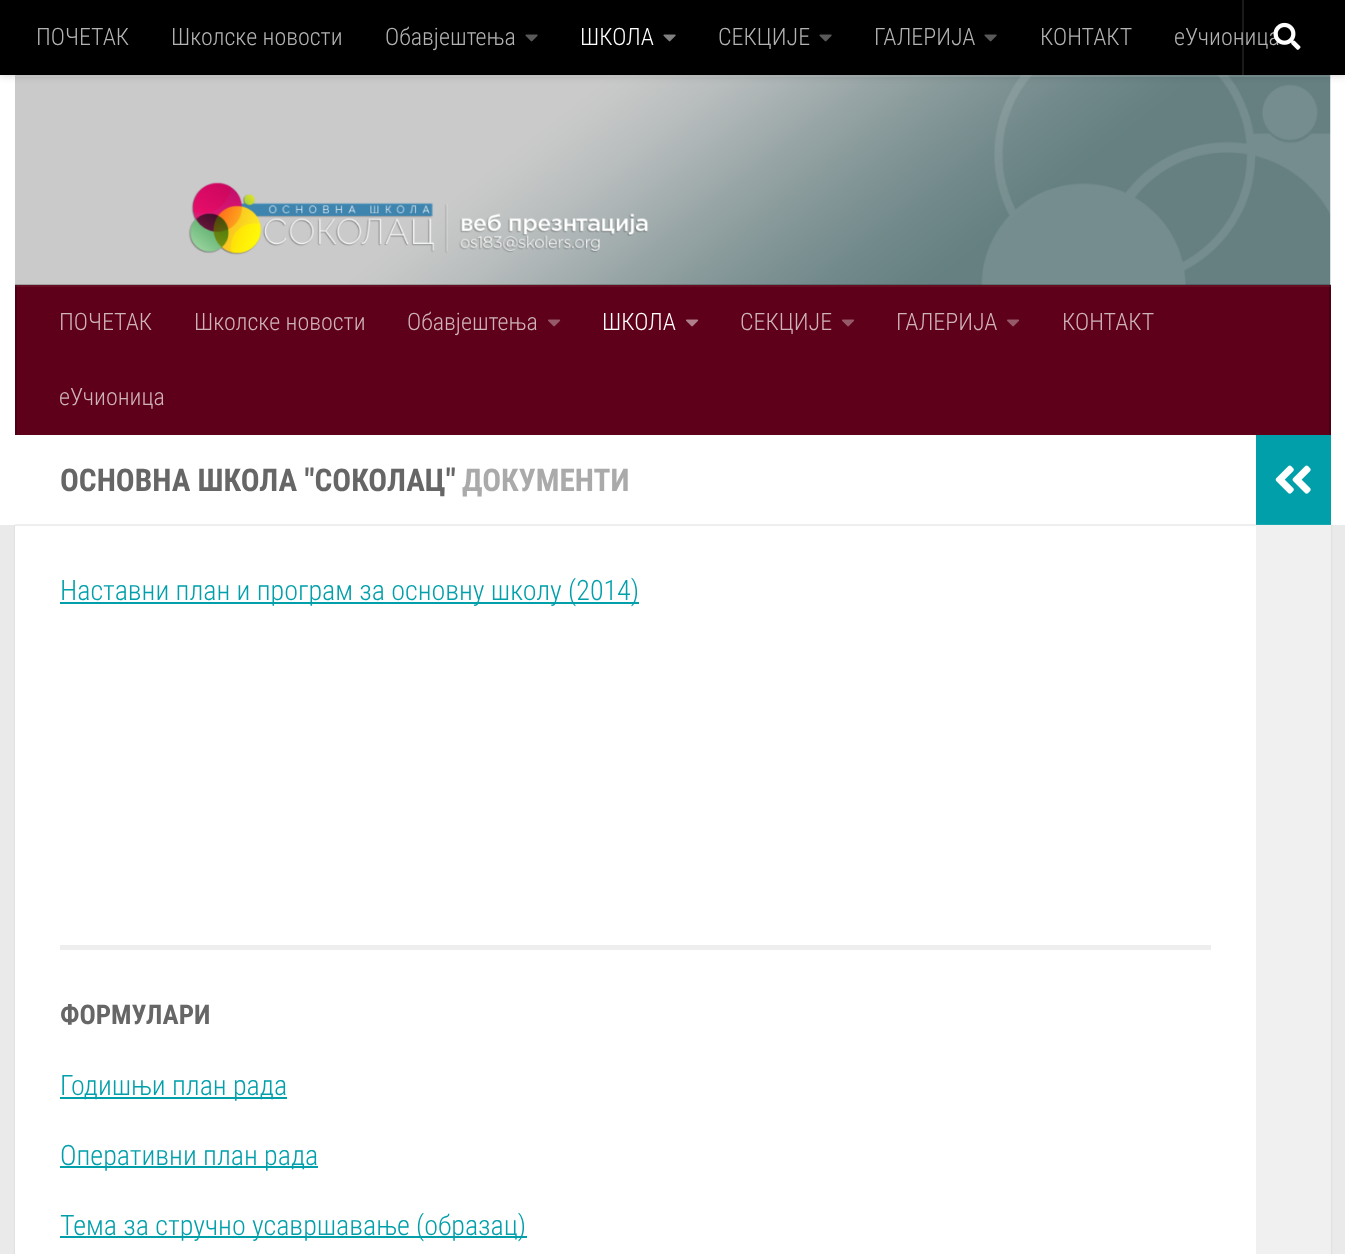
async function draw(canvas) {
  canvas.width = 1345;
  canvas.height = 1254;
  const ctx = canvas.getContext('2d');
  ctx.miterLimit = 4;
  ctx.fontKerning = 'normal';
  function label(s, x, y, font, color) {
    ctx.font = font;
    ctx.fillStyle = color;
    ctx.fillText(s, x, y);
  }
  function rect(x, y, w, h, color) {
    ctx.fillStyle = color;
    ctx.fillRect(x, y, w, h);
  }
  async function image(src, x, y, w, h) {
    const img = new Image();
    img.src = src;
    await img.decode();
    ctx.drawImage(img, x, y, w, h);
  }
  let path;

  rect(0, 0, 1345, 1254, '#eaeaea');
  ctx.fillStyle = '#0000001a';
  ctx.filter = 'blur(1px)';
  ctx.beginPath();
  ctx.rect(15, 437, 1316, 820);
  ctx.fill();
  ctx.filter = 'none';
  rect(0, 75, 1345, 450, '#fff');
  await image('assets/img4.png', 15, 75, 1316, 210);
  ctx.fillStyle = '#ffffff26';
  path = new Path2D('M0 75V77H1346V2V75Z');
  ctx.fill(path);
  ctx.fillStyle = '#00000033';
  ctx.filter = 'blur(4px)';
  ctx.beginPath();
  ctx.rect(0, 0, 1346, 75);
  ctx.fill();
  ctx.filter = 'none';
  rect(0, 0, 1345, 75, '#000');
  rect(1242, 0, 2, 75, '#ffffff1a');
  label('еУчионица', 1174, 45, '300 24px Roboto Condensed', '#b3b3b3');
  await image('assets/img1.png', 1273, 22, 28, 28);
  label('ПОЧЕТАК', 36, 45, '300 24px Roboto Condensed', '#b3b3b3');
  label('Школске новости', 171, 45, '300 24px Roboto Condensed', '#b3b3b3');
  label('Обавјештења', 385, 45, '300 24px Roboto Condensed', '#b3b3b3');
  await image('assets/img2.png', 525, 34, 13, 8);
  label('ШКОЛА', 580, 45, '300 24px Roboto Condensed', '#fff');
  await image('assets/img3.png', 663, 34, 13, 8);
  label('СЕКЦИЈЕ', 718, 45, '300 24px Roboto Condensed', '#b3b3b3');
  await image('assets/img2.png', 819, 34, 13, 8);
  label('ГАЛЕРИЈА', 874, 45, '300 24px Roboto Condensed', '#b3b3b3');
  await image('assets/img2.png', 984, 34, 13, 8);
  label('КОНТАКТ', 1040, 45, '300 24px Roboto Condensed', '#b3b3b3');
  ctx.fillStyle = '#00000033';
  path = new Path2D('M15 284V285H1330V434H1331V284Z');
  ctx.fill(path);
  rect(17, 285, 1312, 150, '#5e0019');
  rect(1329, 285, 2, 150, '#4b0014');
  rect(15, 285, 2, 150, '#4b0014');
  rect(15, 285, 1316, 2, '#ffffff0d');
  label('ПОЧЕТАК', 59, 330, '300 24px Roboto Condensed', '#cfb3ba');
  label('Школске новости', 194, 330, '300 24px Roboto Condensed', '#cfb3ba');
  label('Обавјештења', 407, 330, '300 24px Roboto Condensed', '#cfb3ba');
  await image('assets/img5.png', 548, 319, 13, 8);
  label('ШКОЛА', 602, 330, '300 24px Roboto Condensed', '#fff');
  await image('assets/img6.png', 686, 319, 13, 8);
  label('СЕКЦИЈЕ', 740, 330, '300 24px Roboto Condensed', '#cfb3ba');
  await image('assets/img5.png', 842, 319, 13, 8);
  label('ГАЛЕРИЈА', 896, 330, '300 24px Roboto Condensed', '#cfb3ba');
  await image('assets/img5.png', 1007, 319, 13, 8);
  label('КОНТАКТ', 1062, 330, '300 24px Roboto Condensed', '#cfb3ba');
  label('еУчионица', 59, 405, '300 24px Roboto Condensed', '#cfb3ba');
  rect(15, 526, 1241, 728, '#fff');
  rect(15, 524, 1241, 2, '#eee');
  label('ОСНОВНА ШКОЛА "СОКОЛАЦ"', 60, 491, 'bold 31.25px Roboto Condensed', '#666');
  label('ДОКУМЕНТИ', 462, 491, 'bold 31.25px Roboto Condensed', '#aaa');
  rect(60, 602, 579, 2, '#009faa');
  label('Наставни план и програм за основну школу (2014)', 60, 600, '300 28px Roboto Condensed', '#009faa');
  rect(60, 945, 1151, 5, '#eee');
  label('ФОРМУЛАРИ', 60, 1024, 'bold 27px Roboto Condensed', '#666');
  rect(60, 1097, 227, 2, '#009faa');
  label('Годишњи план рада', 60, 1095, '300 28px Roboto Condensed', '#009faa');
  rect(60, 1166, 258, 2, '#009faa');
  label('Оперативни план рада', 60, 1165, '300 28px Roboto Condensed', '#009faa');
  rect(60, 1236, 467, 2, '#009faa');
  label('Тема за стручно усавршавање (образац)', 60, 1235, '300 28px Roboto Condensed', '#009faa');
  rect(1256, 435, 75, 90, '#009faa');
  rect(1256, 524, 75, 1, '#ffffff1a');
  await image('assets/img7.png', 1275, 465, 36, 29);
  rect(1256, 525, 75, 729, '#f0f0f0');
}

draw(document.querySelector('canvas'));
